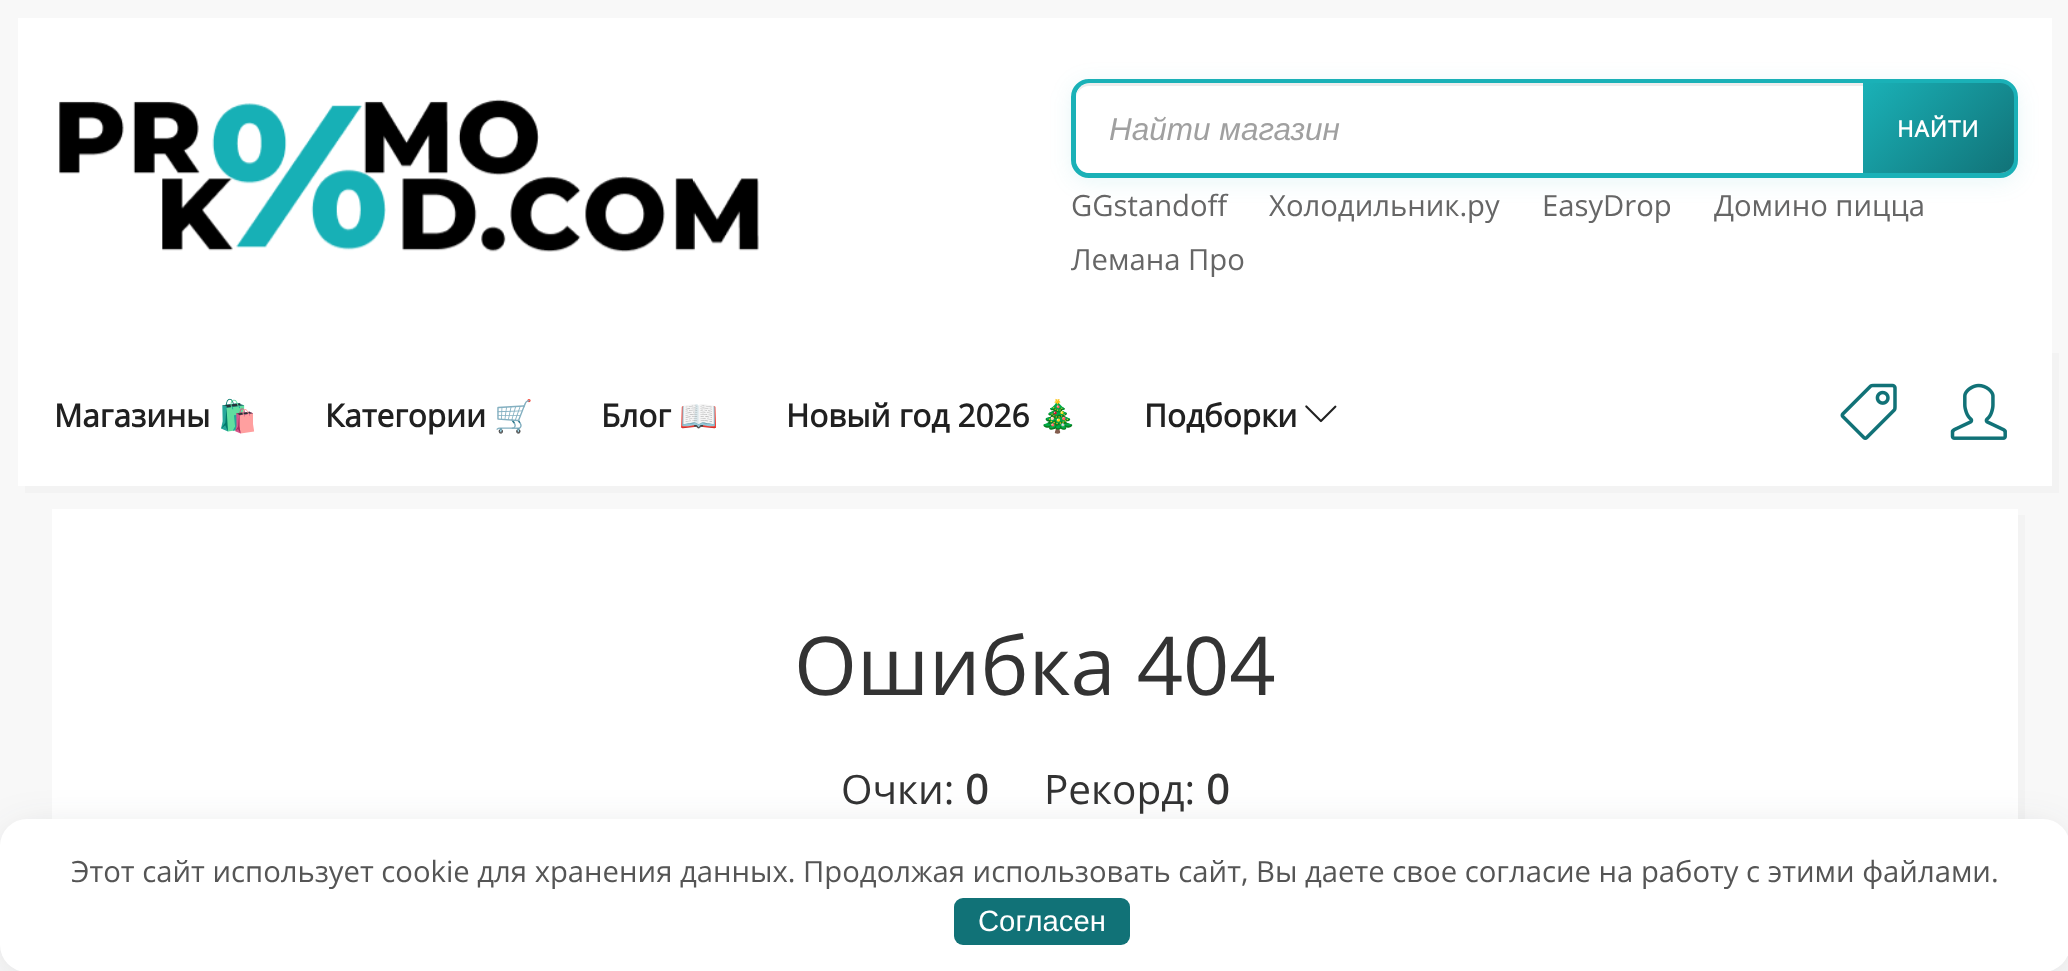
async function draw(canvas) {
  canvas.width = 2068;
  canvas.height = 971;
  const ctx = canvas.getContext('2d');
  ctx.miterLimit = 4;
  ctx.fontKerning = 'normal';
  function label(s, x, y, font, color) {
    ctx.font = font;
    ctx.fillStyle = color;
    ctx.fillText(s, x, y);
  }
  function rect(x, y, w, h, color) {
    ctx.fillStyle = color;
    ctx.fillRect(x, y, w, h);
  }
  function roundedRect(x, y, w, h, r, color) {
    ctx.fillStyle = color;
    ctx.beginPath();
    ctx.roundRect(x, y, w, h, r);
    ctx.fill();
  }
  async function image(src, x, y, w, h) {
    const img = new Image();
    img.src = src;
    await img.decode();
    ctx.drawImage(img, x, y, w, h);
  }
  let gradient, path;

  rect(0, 0, 2068, 971, '#f8f8f8');
  rect(18, 18, 2034, 329, '#fff');
  await image('assets/img1.png', 59, 99, 700, 153);
  ctx.fillStyle = '#1ab1b71a';
  ctx.filter = 'blur(11px)';
  ctx.beginPath();
  ctx.roundRect(1071, 83, 947, 99, 18);
  ctx.fill();
  ctx.filter = 'none';
  ctx.beginPath();
  ctx.roundRect(1073.5, 81.5, 942, 94, 15.5);
  ctx.strokeStyle = '#1ab1b7';
  ctx.lineWidth = 5;
  ctx.stroke();
  ctx.fillStyle = '#fff';
  ctx.beginPath();
  ctx.roundRect(1076, 83, 787, 90, [14, 0, 0, 14]);
  ctx.fill();
  ctx.fillStyle = '#00000012';
  path = new Path2D('M1089 86H1863V83H1090C1081 83 1076 91 1076 99C1076 92 1082 86 1089 86Z');
  ctx.fill(path);
  label('Найти магазин', 1109, 140, 'italic 31.5px Liberation Sans', '#a0a0a0');
  gradient = ctx.createLinearGradient(1878, 68, 1999, 188);
  gradient.addColorStop(0, '#1ab1b7');
  gradient.addColorStop(1, '#117277');
  ctx.fillStyle = gradient;
  ctx.beginPath();
  ctx.roundRect(1863, 83, 151, 90, [0, 14, 14, 0]);
  ctx.fill();
  ctx.letterSpacing = '1px';
  label('НАЙТИ', 1897, 137, 'bold 22.5px Open Sans', '#fff');
  ctx.letterSpacing = '0px';
  label('GGstandoff', 1071, 216, '29.25px Open Sans', '#666');
  label('Холодильник.ру', 1269, 216, '29.25px Open Sans', '#666');
  label('EasyDrop', 1542, 216, '29.25px Open Sans', '#666');
  label('Домино пицца', 1714, 216, '29.25px Open Sans', '#666');
  label('Лемана Про', 1071, 270, '29.25px Open Sans', '#666');
  ctx.fillStyle = '#f3f3f3';
  path = new Path2D('M25 486V493H2059V353H2052V486Z');
  ctx.fill(path);
  rect(18, 347, 2034, 139, '#fff');
  label('Магазины', 54, 427, 'bold 31.5px Open Sans', '#202020');
  label('🛍️', 218, 427, 'bold 31.5px Noto Color Emoji', '#202020');
  label('Категории', 325, 427, 'bold 31.5px Open Sans', '#202020');
  label('🛒', 494, 427, 'bold 31.5px Noto Color Emoji', '#202020');
  label('Блог', 601, 427, 'bold 31.5px Open Sans', '#202020');
  label('📖', 679, 427, 'bold 31.5px Noto Color Emoji', '#202020');
  label('Новый год 2026', 786, 427, 'bold 31.5px Open Sans', '#202020');
  label('🎄', 1038, 427, 'bold 31.5px Noto Color Emoji', '#202020');
  label('Подборки', 1144, 427, 'bold 31.5px Open Sans', '#202020');
  await image('assets/img2.png', 1305, 405, 32, 18);
  await image('assets/img3.png', 1840, 383, 57, 57);
  await image('assets/img4.png', 1950, 383, 57, 57);
  ctx.fillStyle = '#f3f3f3';
  path = new Path2D('M59 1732V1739H2025V515H2018V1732Z');
  ctx.fill(path);
  rect(52, 509, 1966, 310, '#fff');
  label('Ошибка 404', 794, 695, '81px Open Sans', '#333');
  label('Очки:', 841, 804, '40.5px Open Sans', '#333');
  label('0', 965, 804, 'bold 40.5px Open Sans', '#333');
  label('Рекорд:', 1044, 804, '40.5px Open Sans', '#333');
  label('0', 1206, 804, 'bold 40.5px Open Sans', '#333');
  ctx.fillStyle = '#292c3833';
  ctx.filter = 'blur(22.5px)';
  ctx.beginPath();
  ctx.roundRect(11, 837, 2048, 131, 16);
  ctx.fill();
  ctx.filter = 'none';
  roundedRect(0, 819, 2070, 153, 27, '#fff');
  label('Этот сайт использует cookie для хранения данных. Продолжая использовать сайт, Вы даете свое согласие на работу с этими файлами.', 71, 882, '29.25px Open Sans', '#555');
  roundedRect(954, 898, 176, 47, 9, '#117277');
  label('Согласен', 978, 931, '29.25px Liberation Sans', '#fff');
}

draw(document.querySelector('canvas'));
